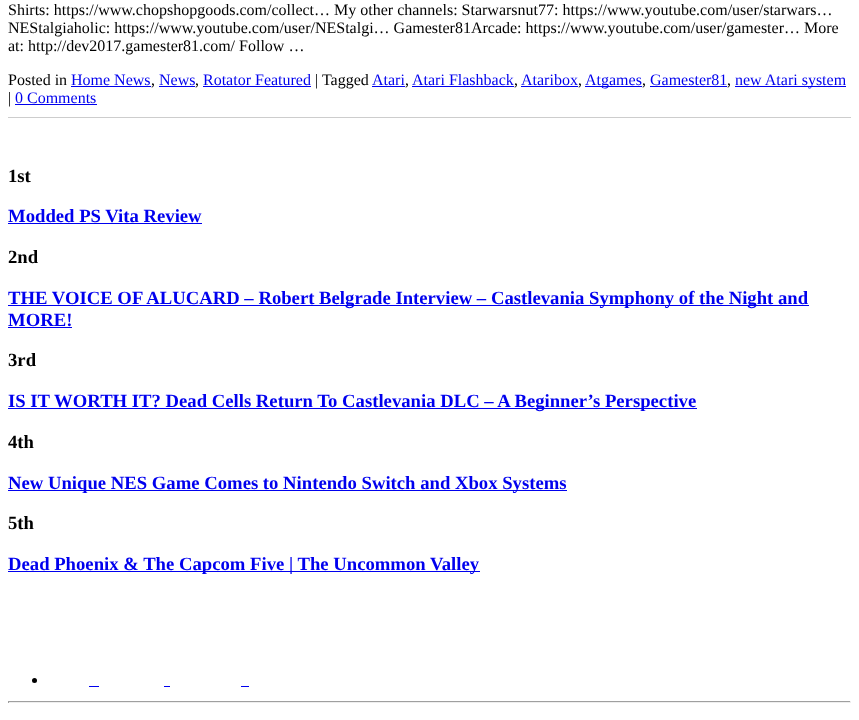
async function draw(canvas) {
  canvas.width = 859;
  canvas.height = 720;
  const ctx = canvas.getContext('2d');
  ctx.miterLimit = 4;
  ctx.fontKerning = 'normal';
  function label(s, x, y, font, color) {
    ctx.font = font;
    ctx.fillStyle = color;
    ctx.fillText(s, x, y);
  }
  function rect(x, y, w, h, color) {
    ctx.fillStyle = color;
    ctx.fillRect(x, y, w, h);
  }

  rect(0, 0, 859, 720, '#fff');
  label('Shirts: https://www.chopshopgoods.com/collect… My other channels: Starwarsnut77: https://www.youtube.com/user/starwars…', 8, 15, '16px Liberation Serif', '#000');
  label('NEStalgiaholic: https://www.youtube.com/user/NEStalgi… Gamester81Arcade: https://www.youtube.com/user/gamester… More', 8, 33, '16px Liberation Serif', '#000');
  label('at: http://dev2017.gamester81.com/ Follow …', 8, 51, '16px Liberation Serif', '#000');
  label('Posted in', 8, 85, '16px Liberation Serif', '#000');
  label('Home News', 71, 85, '16px Liberation Serif', '#00e');
  label(',', 151, 85, '16px Liberation Serif', '#000');
  rect(71, 86, 80, 1, '#00e');
  label('News', 159, 85, '16px Liberation Serif', '#00e');
  label(',', 195, 85, '16px Liberation Serif', '#000');
  rect(159, 86, 36, 1, '#00e');
  rect(203, 86, 108, 1, '#00e');
  label('Rotator Featured', 203, 85, '16px Liberation Serif', '#00e');
  label('| Tagged', 315, 85, '16px Liberation Serif', '#000');
  label('Atari', 372, 85, '16px Liberation Serif', '#00e');
  label(',', 405, 85, '16px Liberation Serif', '#000');
  rect(372, 86, 33, 1, '#00e');
  label('Atari Flashback', 412, 85, '16px Liberation Serif', '#00e');
  label(',', 514, 85, '16px Liberation Serif', '#000');
  rect(412, 86, 102, 1, '#00e');
  label('Ataribox', 521, 85, '16px Liberation Serif', '#00e');
  label(',', 578, 85, '16px Liberation Serif', '#000');
  rect(521, 86, 57, 1, '#00e');
  rect(585, 86, 57, 1, '#00e');
  label('Atgames', 585, 85, '16px Liberation Serif', '#00e');
  label(',', 642, 85, '16px Liberation Serif', '#000');
  label('Gamester81', 650, 85, '16px Liberation Serif', '#00e');
  label(',', 727, 85, '16px Liberation Serif', '#000');
  rect(650, 86, 77, 1, '#00e');
  rect(735, 86, 111, 1, '#00e');
  label('new Atari system', 735, 85, '16px Liberation Serif', '#00e');
  label('|', 8, 103, '16px Liberation Serif', '#000');
  label('0 Comments', 15, 103, '16px Liberation Serif', '#00e');
  rect(15, 104, 82, 1, '#00e');
  rect(8, 117, 843, 1, '#cdcdcd');
  label('1st', 8, 182, 'bold 18.7px Liberation Serif', '#000');
  label('Modded PS Vita Review', 8, 222, 'bold 18.7px Liberation Serif', '#00e');
  rect(8, 223, 194, 1, '#00e');
  label('2nd', 8, 263, 'bold 18.7px Liberation Serif', '#000');
  rect(8, 305, 801, 1, '#00e');
  label('THE VOICE OF ALUCARD – Robert Belgrade Interview – Castlevania Symphony of the Night and', 8, 304, 'bold 18.7px Liberation Serif', '#00e');
  label('MORE!', 8, 326, 'bold 18.7px Liberation Serif', '#00e');
  rect(8, 327, 64, 1, '#00e');
  label('3rd', 8, 366, 'bold 18.7px Liberation Serif', '#000');
  rect(8, 408, 689, 1, '#00e');
  label('IS IT WORTH IT? Dead Cells Return To Castlevania DLC – A Beginner’s Perspective', 8, 407, 'bold 18.7px Liberation Serif', '#00e');
  label('4th', 8, 448, 'bold 18.7px Liberation Serif', '#000');
  rect(8, 490, 559, 1, '#00e');
  label('New Unique NES Game Comes to Nintendo Switch and Xbox Systems', 8, 489, 'bold 18.7px Liberation Serif', '#00e');
  label('5th', 8, 529, 'bold 18.7px Liberation Serif', '#000');
  rect(8, 571, 472, 1, '#00e');
  label('Dead Phoenix & The Capcom Five | The Uncommon Valley', 8, 570, 'bold 18.7px Liberation Serif', '#00e');
  ctx.fillStyle = '#000';
  ctx.beginPath();
  ctx.arc(34.5, 680.5, 2.5, 0, 2 * Math.PI);
  ctx.fill();
  rect(89, 686, 10, 1, '#00e');
  rect(164, 686, 6, 1, '#00e');
  rect(241, 686, 8, 1, '#00e');
  rect(8, 701, 843, 1, '#9f9f9f');
  rect(850, 701, 1, 2, '#eee');
  rect(8, 702, 843, 1, '#eee');
  rect(8, 701, 1, 2, '#9f9f9f');
}

draw(document.querySelector('canvas'));
